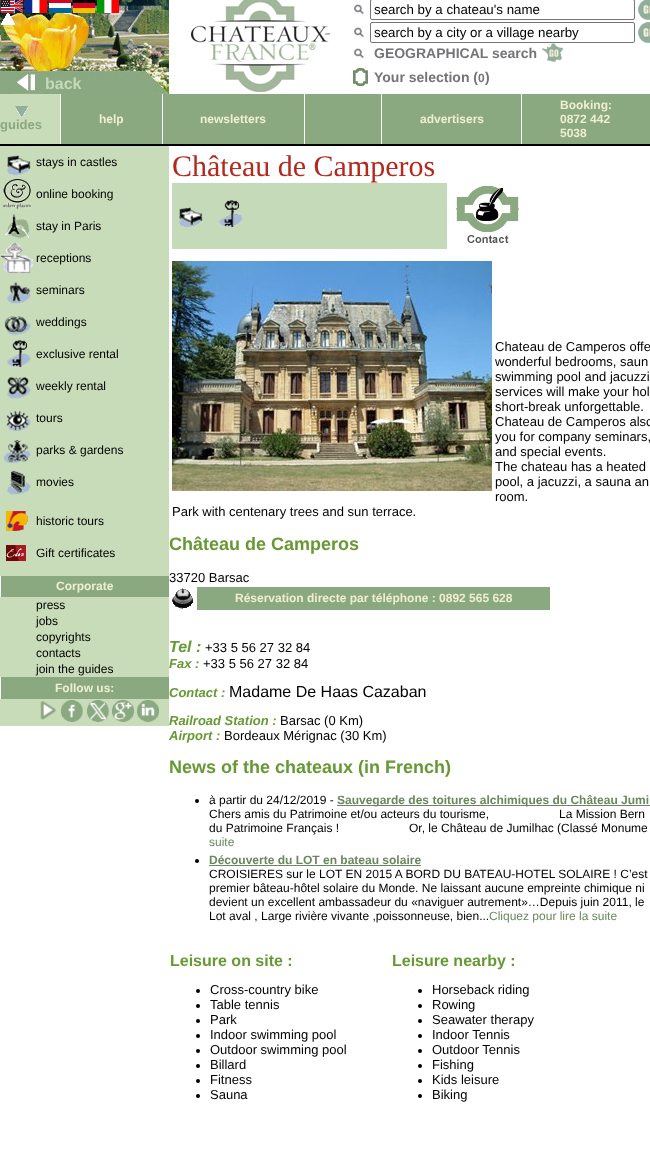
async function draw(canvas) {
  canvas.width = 650;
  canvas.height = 1168;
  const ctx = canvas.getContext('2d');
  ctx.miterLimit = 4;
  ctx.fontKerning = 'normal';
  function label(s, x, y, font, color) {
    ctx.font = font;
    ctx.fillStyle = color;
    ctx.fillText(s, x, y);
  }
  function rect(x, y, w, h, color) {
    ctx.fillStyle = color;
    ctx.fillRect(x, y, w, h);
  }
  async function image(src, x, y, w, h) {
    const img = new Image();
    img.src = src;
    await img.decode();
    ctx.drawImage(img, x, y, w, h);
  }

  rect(0, 0, 650, 1168, '#fff');
  await image('assets/img1.png', 0, 0, 169, 94);
  await image('assets/img2.png', 1, 0, 22, 13);
  await image('assets/img3.png', 1, 13, 14, 12);
  await image('assets/img4.png', 25, 0, 22, 13);
  await image('assets/img5.png', 49, 0, 22, 13);
  await image('assets/img6.png', 73, 0, 22, 13);
  await image('assets/img7.png', 97, 0, 22, 13);
  label('back', 45, 89, 'bold 16px Liberation Sans', '#c5dab8');
  await image('assets/img8.png', 191, 0, 139, 92);
  await image('assets/img9.png', 354, 4, 10, 11);
  ctx.beginPath();
  ctx.roundRect(370.5, -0.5, 264, 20, 1.5);
  ctx.strokeStyle = '#767676';
  ctx.stroke();
  label('search by a chateau\'s name', 374, 14, '13.3px Liberation Sans', '#000');
  await image('assets/img10.png', 638, 0, 12, 20);
  await image('assets/img9.png', 354, 27, 10, 11);
  ctx.beginPath();
  ctx.roundRect(370.5, 22.5, 264, 20, 1.5);
  ctx.stroke();
  label('search by a city or a village nearby', 374, 37, '13.3px Liberation Sans', '#000');
  await image('assets/img11.png', 638, 22, 12, 21);
  await image('assets/img9.png', 354, 48, 10, 11);
  label('GEOGRAPHICAL search', 374, 58, 'bold 14px Liberation Sans', '#737477');
  await image('assets/img12.png', 542, 43, 21, 19);
  await image('assets/img13.png', 353, 68, 15, 18);
  label('Your selection (', 374, 82, 'bold 14px Liberation Sans', '#737477');
  label('0', 478, 82, 'bold 12px Liberation Sans', '#737477');
  label(')', 485, 82, 'bold 14px Liberation Sans', '#737477');
  rect(0, 94, 60, 50, '#c9dcba');
  await image('assets/img14.png', 15, 106, 13, 11);
  label('guides', 0, 129, 'bold 13px Liberation Sans', '#8ba981');
  rect(61, 94, 101, 50, '#8ba981');
  label('help', 99, 123, 'bold 12px Liberation Sans', '#efefd0');
  rect(163, 94, 141, 50, '#8ba981');
  label('newsletters', 200, 123, 'bold 12px Liberation Sans', '#efefd0');
  rect(305, 94, 76, 50, '#8ba981');
  rect(382, 94, 139, 50, '#8ba981');
  label('advertisers', 420, 123, 'bold 12px Liberation Sans', '#efefd0');
  rect(522, 94, 128, 50, '#8ba981');
  label('Booking:', 560, 109, 'bold 12px Liberation Sans', '#efefd0');
  label('0872 442', 560, 123, 'bold 12px Liberation Sans', '#efefd0');
  label('5038', 560, 137, 'bold 12px Liberation Sans', '#efefd0');
  rect(0, 144, 650, 2, '#000');
  rect(0, 146, 169, 580, '#c9dcba');
  await image('assets/img15.png', 7, 155, 24, 21);
  label('stays in castles', 36, 166, '12px Liberation Sans', '#000');
  await image('assets/img16.png', 3, 179, 28, 30);
  label('online booking', 36, 198, '12px Liberation Sans', '#000');
  await image('assets/img17.png', 5, 214, 26, 25);
  label('stay in Paris', 36, 230, '12px Liberation Sans', '#000');
  await image('assets/img18.png', 1, 243, 32, 30);
  label('receptions', 36, 262, '12px Liberation Sans', '#000');
  await image('assets/img19.png', 7, 282, 24, 22);
  label('seminars', 36, 294, '12px Liberation Sans', '#000');
  await image('assets/img20.png', 4, 316, 27, 20);
  label('weddings', 36, 326, '12px Liberation Sans', '#000');
  await image('assets/img21.png', 7, 340, 24, 27);
  label('exclusive rental', 36, 358, '12px Liberation Sans', '#000');
  await image('assets/img22.png', 7, 377, 24, 22);
  label('weekly rental', 36, 390, '12px Liberation Sans', '#000');
  await image('assets/img23.png', 6, 411, 25, 21);
  label('tours', 36, 422, '12px Liberation Sans', '#000');
  await image('assets/img24.png', 4, 440, 27, 23);
  label('parks & gardens', 36, 454, '12px Liberation Sans', '#000');
  await image('assets/img25.png', 7, 470, 24, 25);
  label('movies', 36, 486, '12px Liberation Sans', '#000');
  await image('assets/img26.png', 6, 511, 22, 20);
  label('historic tours', 36, 525, '12px Liberation Sans', '#000');
  await image('assets/img27.png', 6, 545, 20, 16);
  label('Gift certificates', 36, 557, '12px Liberation Sans', '#000');
  rect(1, 576, 168, 21, '#8ba981');
  rect(0, 576, 1, 21, '#fff');
  label('Corporate', 56, 590, 'bold 12px Liberation Sans', '#efefd0');
  label('press', 36, 609, '12px Liberation Sans', '#000');
  label('jobs', 36, 625, '12px Liberation Sans', '#000');
  label('copyrights', 36, 641, '12px Liberation Sans', '#000');
  label('contacts', 36, 657, '12px Liberation Sans', '#000');
  label('join the guides', 36, 673, '12px Liberation Sans', '#000');
  rect(1, 677, 168, 22, '#8ba981');
  rect(0, 677, 1, 22, '#fff');
  label('Follow us:', 55, 692, 'bold 12px Liberation Sans', '#efefd0');
  await image('assets/img28.png', 40, 701, 16, 19);
  await image('assets/img29.png', 61, 700, 22, 22);
  await image('assets/img30.png', 87, 700, 22, 22);
  await image('assets/img31.png', 112, 700, 22, 22);
  await image('assets/img32.png', 137, 700, 22, 22);
  label('Château de Camperos', 172, 176, '30px Liberation Serif', '#b3291e');
  rect(172, 183, 275, 66, '#c5dab8');
  await image('assets/img33.png', 179, 207, 24, 21);
  await image('assets/img34.png', 219, 200, 24, 27);
  await image('assets/img35.png', 456, 186, 63, 57);
  await image('assets/img36.png', 172, 261, 320, 230);
  label('Chateau de Camperos offe', 495, 351, '13px Liberation Sans', '#000');
  label('wonderful bedrooms, saun', 495, 366, '13px Liberation Sans', '#000');
  label('swimming pool and jacuzzi', 495, 381, '13px Liberation Sans', '#000');
  label('services will make your hol', 495, 396, '13px Liberation Sans', '#000');
  label('short-break unforgettable.', 495, 411, '13px Liberation Sans', '#000');
  label('Chateau de Camperos also', 495, 426, '13px Liberation Sans', '#000');
  label('you for company seminars,', 495, 441, '13px Liberation Sans', '#000');
  label('and special events.', 495, 456, '13px Liberation Sans', '#000');
  label('The chateau has a heated', 495, 471, '13px Liberation Sans', '#000');
  label('pool, a jacuzzi, a sauna an', 495, 486, '13px Liberation Sans', '#000');
  label('room.', 495, 501, '13px Liberation Sans', '#000');
  label('Park with centenary trees and sun terrace.', 172, 516, '13px Liberation Sans', '#000');
  label('Château de Camperos', 169, 550, 'bold 18px Liberation Sans', '#693');
  label('33720 Barsac', 169, 582, '13px Liberation Sans', '#000');
  await image('assets/img37.png', 172, 588, 21, 21);
  rect(197, 587, 353, 23, '#8ba981');
  label('Réservation directe par téléphone : 0892 565 628', 235, 602, 'bold 12px Liberation Sans', '#efefd0');
  label('Tel :', 169, 652, 'italic bold 16px Liberation Sans', '#693');
  label('+33 5 56 27 32 84', 205, 652, '13px Liberation Sans', '#000');
  label('Fax :', 169, 668, 'italic bold 13px Liberation Sans', '#693');
  label('+33 5 56 27 32 84', 203, 668, '13px Liberation Sans', '#000');
  label('Contact :', 169, 697, 'italic bold 13px Liberation Sans', '#693');
  label('Madame De Haas Cazaban', 229, 697, '16px Liberation Sans', '#000');
  label('Railroad Station :', 169, 725, 'italic bold 13px Liberation Sans', '#693');
  label('Barsac (0 Km)', 280, 725, '13px Liberation Sans', '#000');
  label('Airport :', 169, 740, 'italic bold 13px Liberation Sans', '#693');
  label('Bordeaux Mérignac (30 Km)', 224, 740, '13px Liberation Sans', '#000');
  label('News of the chateaux (in French)', 169, 773, 'bold 18px Liberation Sans', '#693');
  ctx.fillStyle = '#000';
  ctx.beginPath();
  ctx.arc(197, 801, 2, 0, 2 * Math.PI);
  ctx.fill();
  label('à partir du 24/12/2019 -', 209, 804, '12px Liberation Sans', '#000');
  rect(337, 805, 313, 1, '#6a875e');
  label('Sauvegarde des toitures alchimiques du Château Jumi', 337, 804, 'bold 12px Liberation Sans', '#6a875e');
  label('Chers amis du Patrimoine et/ou acteurs du tourisme,', 209, 818, '12px Liberation Sans', '#000');
  label('La Mission Bern', 559, 818, '12px Liberation Sans', '#000');
  label('du Patrimoine Français !', 209, 832, '12px Liberation Sans', '#000');
  label('Or, le Château de Jumilhac (Classé Monume', 409, 832, '12px Liberation Sans', '#000');
  label('suite', 209, 846, '12px Liberation Sans', '#6a875e');
  ctx.fillStyle = '#000';
  ctx.beginPath();
  ctx.arc(197, 861, 2, 0, 2 * Math.PI);
  ctx.fill();
  label('Découverte du LOT en bateau solaire', 209, 864, 'bold 12px Liberation Sans', '#6a875e');
  rect(209, 865, 212, 1, '#6a875e');
  label('CROISIERES sur le LOT EN 2015 A BORD DU BATEAU-HOTEL SOLAIRE ! C’est', 209, 878, '12px Liberation Sans', '#000');
  label('premier bâteau-hôtel solaire du Monde. Ne laissant aucune empreinte chimique ni', 209, 892, '12px Liberation Sans', '#000');
  label('devient un excellent ambassadeur du «naviguer autrement»…Depuis juin 2011, le', 209, 906, '12px Liberation Sans', '#000');
  label('Lot aval , Large rivière vivante ,poissonneuse, bien...', 209, 920, '12px Liberation Sans', '#000');
  label('Cliquez pour lire la suite', 489, 920, '12px Liberation Sans', '#6a875e');
  label('Leisure on site :', 170, 966, 'bold 16px Liberation Sans', '#693');
  ctx.fillStyle = '#000';
  ctx.beginPath();
  ctx.arc(198, 991, 2, 0, 2 * Math.PI);
  ctx.fill();
  label('Cross-country bike', 210, 994, '13px Liberation Sans', '#000');
  ctx.beginPath();
  ctx.arc(198, 1006, 2, 0, 2 * Math.PI);
  ctx.fill();
  label('Table tennis', 210, 1009, '13px Liberation Sans', '#000');
  ctx.beginPath();
  ctx.arc(198, 1021, 2, 0, 2 * Math.PI);
  ctx.fill();
  label('Park', 210, 1024, '13px Liberation Sans', '#000');
  ctx.beginPath();
  ctx.arc(198, 1036, 2, 0, 2 * Math.PI);
  ctx.fill();
  label('Indoor swimming pool', 210, 1039, '13px Liberation Sans', '#000');
  ctx.beginPath();
  ctx.arc(198, 1051, 2, 0, 2 * Math.PI);
  ctx.fill();
  label('Outdoor swimming pool', 210, 1054, '13px Liberation Sans', '#000');
  ctx.beginPath();
  ctx.arc(198, 1066, 2, 0, 2 * Math.PI);
  ctx.fill();
  label('Billard', 210, 1069, '13px Liberation Sans', '#000');
  ctx.beginPath();
  ctx.arc(198, 1081, 2, 0, 2 * Math.PI);
  ctx.fill();
  label('Fitness', 210, 1084, '13px Liberation Sans', '#000');
  ctx.beginPath();
  ctx.arc(198, 1096, 2, 0, 2 * Math.PI);
  ctx.fill();
  label('Sauna', 210, 1099, '13px Liberation Sans', '#000');
  label('Leisure nearby :', 392, 966, 'bold 16px Liberation Sans', '#693');
  ctx.fillStyle = '#000';
  ctx.beginPath();
  ctx.arc(420, 991, 2, 0, 2 * Math.PI);
  ctx.fill();
  label('Horseback riding', 432, 994, '13px Liberation Sans', '#000');
  ctx.beginPath();
  ctx.arc(420, 1006, 2, 0, 2 * Math.PI);
  ctx.fill();
  label('Rowing', 432, 1009, '13px Liberation Sans', '#000');
  ctx.beginPath();
  ctx.arc(420, 1021, 2, 0, 2 * Math.PI);
  ctx.fill();
  label('Seawater therapy', 432, 1024, '13px Liberation Sans', '#000');
  ctx.beginPath();
  ctx.arc(420, 1036, 2, 0, 2 * Math.PI);
  ctx.fill();
  label('Indoor Tennis', 432, 1039, '13px Liberation Sans', '#000');
  ctx.beginPath();
  ctx.arc(420, 1051, 2, 0, 2 * Math.PI);
  ctx.fill();
  label('Outdoor Tennis', 432, 1054, '13px Liberation Sans', '#000');
  ctx.beginPath();
  ctx.arc(420, 1066, 2, 0, 2 * Math.PI);
  ctx.fill();
  label('Fishing', 432, 1069, '13px Liberation Sans', '#000');
  ctx.beginPath();
  ctx.arc(420, 1081, 2, 0, 2 * Math.PI);
  ctx.fill();
  label('Kids leisure', 432, 1084, '13px Liberation Sans', '#000');
  ctx.beginPath();
  ctx.arc(420, 1096, 2, 0, 2 * Math.PI);
  ctx.fill();
  label('Biking', 432, 1099, '13px Liberation Sans', '#000');
}

draw(document.querySelector('canvas'));
